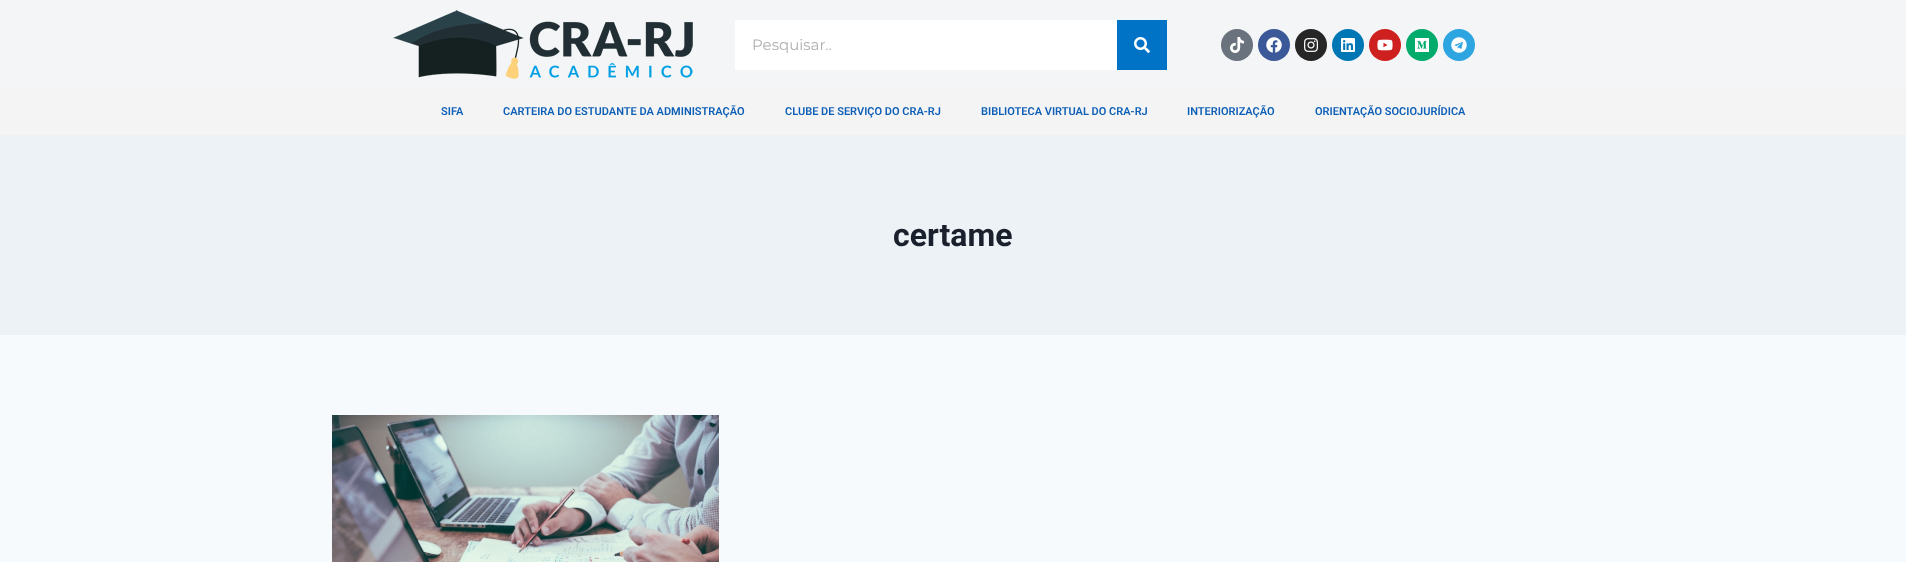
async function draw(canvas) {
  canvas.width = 1906;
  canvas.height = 562;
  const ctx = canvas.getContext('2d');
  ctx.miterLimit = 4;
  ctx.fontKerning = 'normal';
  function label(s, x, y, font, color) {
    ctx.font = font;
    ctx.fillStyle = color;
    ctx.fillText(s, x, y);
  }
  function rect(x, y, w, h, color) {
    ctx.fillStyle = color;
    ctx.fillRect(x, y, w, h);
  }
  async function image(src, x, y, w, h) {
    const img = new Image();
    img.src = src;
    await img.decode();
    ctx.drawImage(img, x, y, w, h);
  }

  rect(0, 0, 1906, 562, '#f7fafc');
  rect(0, 0, 1906, 89, '#f3f5f7');
  await image('assets/img1.png', 393, 10, 300, 69);
  rect(735, 20, 382, 50, '#fff');
  label('Pesquisar..', 752, 50, '15px Montserrat', '#afafaf');
  rect(1117, 20, 50, 50, '#0073c6');
  await image('assets/img2.png', 1134, 37, 16, 16);
  ctx.fillStyle = '#69727d';
  ctx.beginPath();
  ctx.arc(1237, 45, 16, 0, 2 * Math.PI);
  ctx.fill();
  await image('assets/img3.png', 1230, 37, 14, 16);
  ctx.fillStyle = '#3b5998';
  ctx.beginPath();
  ctx.arc(1274, 45, 16, 0, 2 * Math.PI);
  ctx.fill();
  await image('assets/img4.png', 1266, 37, 16, 16);
  ctx.fillStyle = '#262626';
  ctx.beginPath();
  ctx.arc(1311, 45, 16, 0, 2 * Math.PI);
  ctx.fill();
  await image('assets/img5.png', 1304, 38, 14, 14);
  ctx.fillStyle = '#0077b5';
  ctx.beginPath();
  ctx.arc(1348, 45, 16, 0, 2 * Math.PI);
  ctx.fill();
  await image('assets/img6.png', 1341, 38, 14, 14);
  ctx.fillStyle = '#cd201f';
  ctx.beginPath();
  ctx.arc(1385, 45, 16, 0, 2 * Math.PI);
  ctx.fill();
  await image('assets/img7.png', 1377, 39, 16, 12);
  ctx.fillStyle = '#00ab6b';
  ctx.beginPath();
  ctx.arc(1422, 45, 16, 0, 2 * Math.PI);
  ctx.fill();
  await image('assets/img8.png', 1415, 38, 14, 14);
  ctx.fillStyle = '#2ca5e0';
  ctx.beginPath();
  ctx.arc(1459, 45, 16, 0, 2 * Math.PI);
  ctx.fill();
  await image('assets/img9.png', 1451, 37, 16, 16);
  rect(0, 89, 1906, 46, '#f4f4f4');
  label('SIFA', 441, 115, '600 11px Roboto', '#0e5fb7');
  label('CARTEIRA DO ESTUDANTE DA ADMINISTRAÇÃO', 503, 115, '600 11px Roboto', '#0e5fb7');
  label('CLUBE DE SERVIÇO DO CRA-RJ', 785, 115, '600 11px Roboto', '#0e5fb7');
  label('BIBLIOTECA VIRTUAL DO CRA-RJ', 981, 115, '600 11px Roboto', '#0e5fb7');
  label('INTERIORIZAÇÃO', 1187, 115, '600 11px Roboto', '#0e5fb7');
  label('ORIENTAÇÃO SOCIOJURÍDICA', 1315, 115, '600 11px Roboto', '#0e5fb7');
  rect(0, 135, 1906, 200, '#edf2f7');
  label('certame', 893, 246, 'bold 32px Roboto', '#1a202c');
  await image('assets/img10.png', 332, 415, 387, 147);
}

draw(document.querySelector('canvas'));
